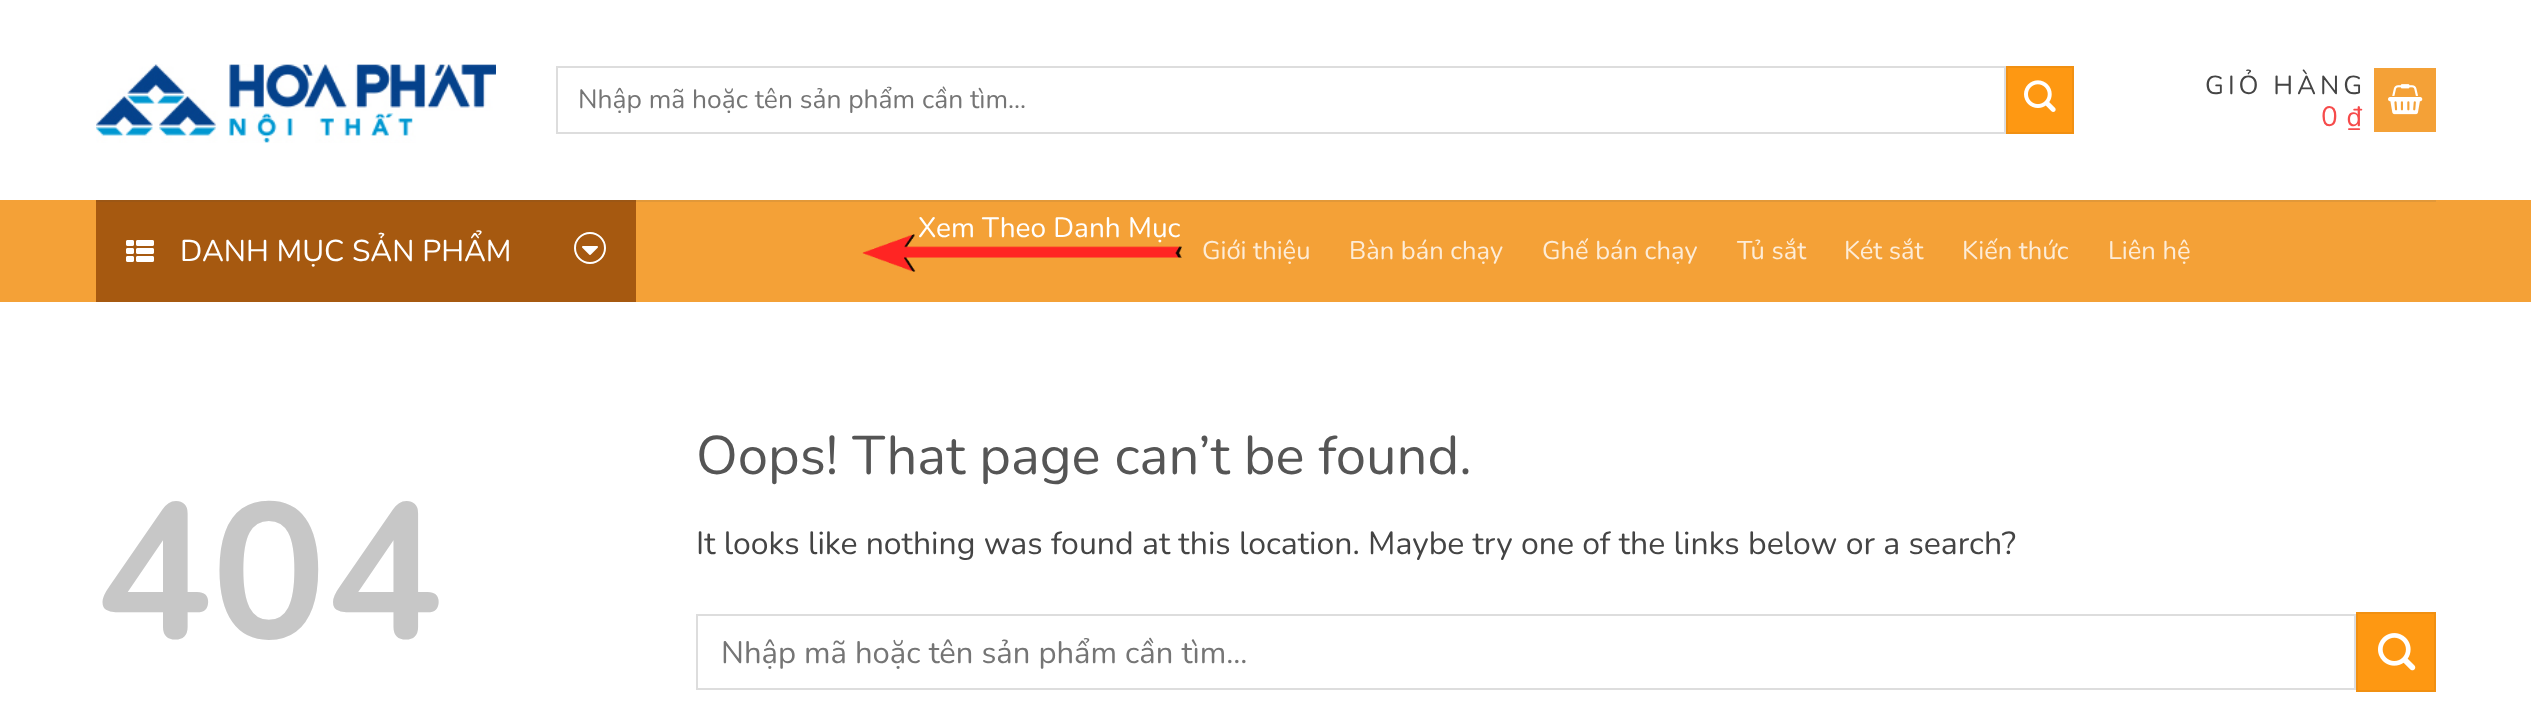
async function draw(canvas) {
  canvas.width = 2531;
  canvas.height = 718;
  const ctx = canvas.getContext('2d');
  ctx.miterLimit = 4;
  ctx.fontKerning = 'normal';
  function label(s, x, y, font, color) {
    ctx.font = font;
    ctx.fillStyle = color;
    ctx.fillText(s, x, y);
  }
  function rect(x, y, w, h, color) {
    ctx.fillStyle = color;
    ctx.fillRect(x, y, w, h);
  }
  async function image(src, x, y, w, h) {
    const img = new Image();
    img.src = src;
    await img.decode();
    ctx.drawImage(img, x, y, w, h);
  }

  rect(0, 0, 2531, 718, '#fff');
  await image('assets/img1.png', 96, 64, 400, 79);
  ctx.strokeStyle = '#ddd';
  ctx.lineWidth = 2;
  ctx.strokeRect(557, 67, 1448, 66);
  label('Nhập mã hoặc tên sản phẩm cần tìm...', 578, 108, '26.4px Nunito', '#757575');
  ctx.fillStyle = '#fe9812';
  ctx.beginPath();
  ctx.rect(2007, 67, 66, 66);
  ctx.fill();
  ctx.strokeStyle = '#f19011';
  ctx.stroke();
  await image('assets/img2.png', 2024, 80, 32, 32);
  ctx.letterSpacing = '4px';
  label('GIỎ HÀNG', 2205, 94, '26px Nunito', '#444');
  ctx.letterSpacing = '0.5px';
  label('0 ₫', 2321, 126, '28px Nunito', '#f64b4b');
  rect(2374, 68, 62, 64, '#f4a137');
  await image('assets/img3.png', 2388, 84, 35, 31);
  rect(0, 200, 2531, 102, '#f4a137');
  rect(636, 200, 1800, 2, '#e29838');
  rect(96, 202, 540, 100, '#a65910');
  rect(96, 200, 540, 2, '#9c5715');
  await image('assets/img4.png', 126, 240, 28, 22);
  ctx.letterSpacing = '0px';
  label('DANH MỤC SẢN PHẨM', 180, 261, '30px Nunito', '#fff');
  ctx.beginPath();
  ctx.arc(590, 248, 15, 0, 2 * Math.PI);
  ctx.strokeStyle = '#fff';
  ctx.stroke();
  await image('assets/img5.png', 582, 246, 16, 9);
  label('Xem Theo Danh Mục', 918, 237, '28px Nunito', '#fff');
  await image('assets/img6.png', 862, 234, 320, 38);
  label('Giới thiệu', 1202, 259, '25.5px Nunito', '#fdecd7');
  label('Bàn bán chạy', 1349, 259, '25.5px Nunito', '#fdecd7');
  label('Ghế bán chạy', 1542, 259, '25.5px Nunito', '#fdecd7');
  label('Tủ sắt', 1737, 259, '25.5px Nunito', '#fdecd7');
  label('Két sắt', 1844, 259, '25.5px Nunito', '#fdecd7');
  label('Kiến thức', 1962, 259, '25.5px Nunito', '#fdecd7');
  label('Liên hệ', 2108, 259, '25.5px Nunito', '#fdecd7');
  label('404', 96, 638, 'bold 192px Nunito', '#c7c7c7');
  label('Oops! That page can’t be found.', 696, 474, '54.4px Nunito', '#555');
  label('It looks like nothing was found at this location. Maybe try one of the links below or a search?', 696, 554, '32px Nunito', '#444');
  ctx.strokeStyle = '#ddd';
  ctx.strokeRect(697, 615, 1658, 74);
  label('Nhập mã hoặc tên sản phẩm cần tìm...', 721, 663, '31px Nunito', '#757575');
  ctx.fillStyle = '#fe9812';
  ctx.beginPath();
  ctx.rect(2357, 613, 78, 78);
  ctx.fill();
  ctx.strokeStyle = '#f19011';
  ctx.stroke();
  await image('assets/img7.png', 2378, 633, 38, 38);
}

draw(document.querySelector('canvas'));
